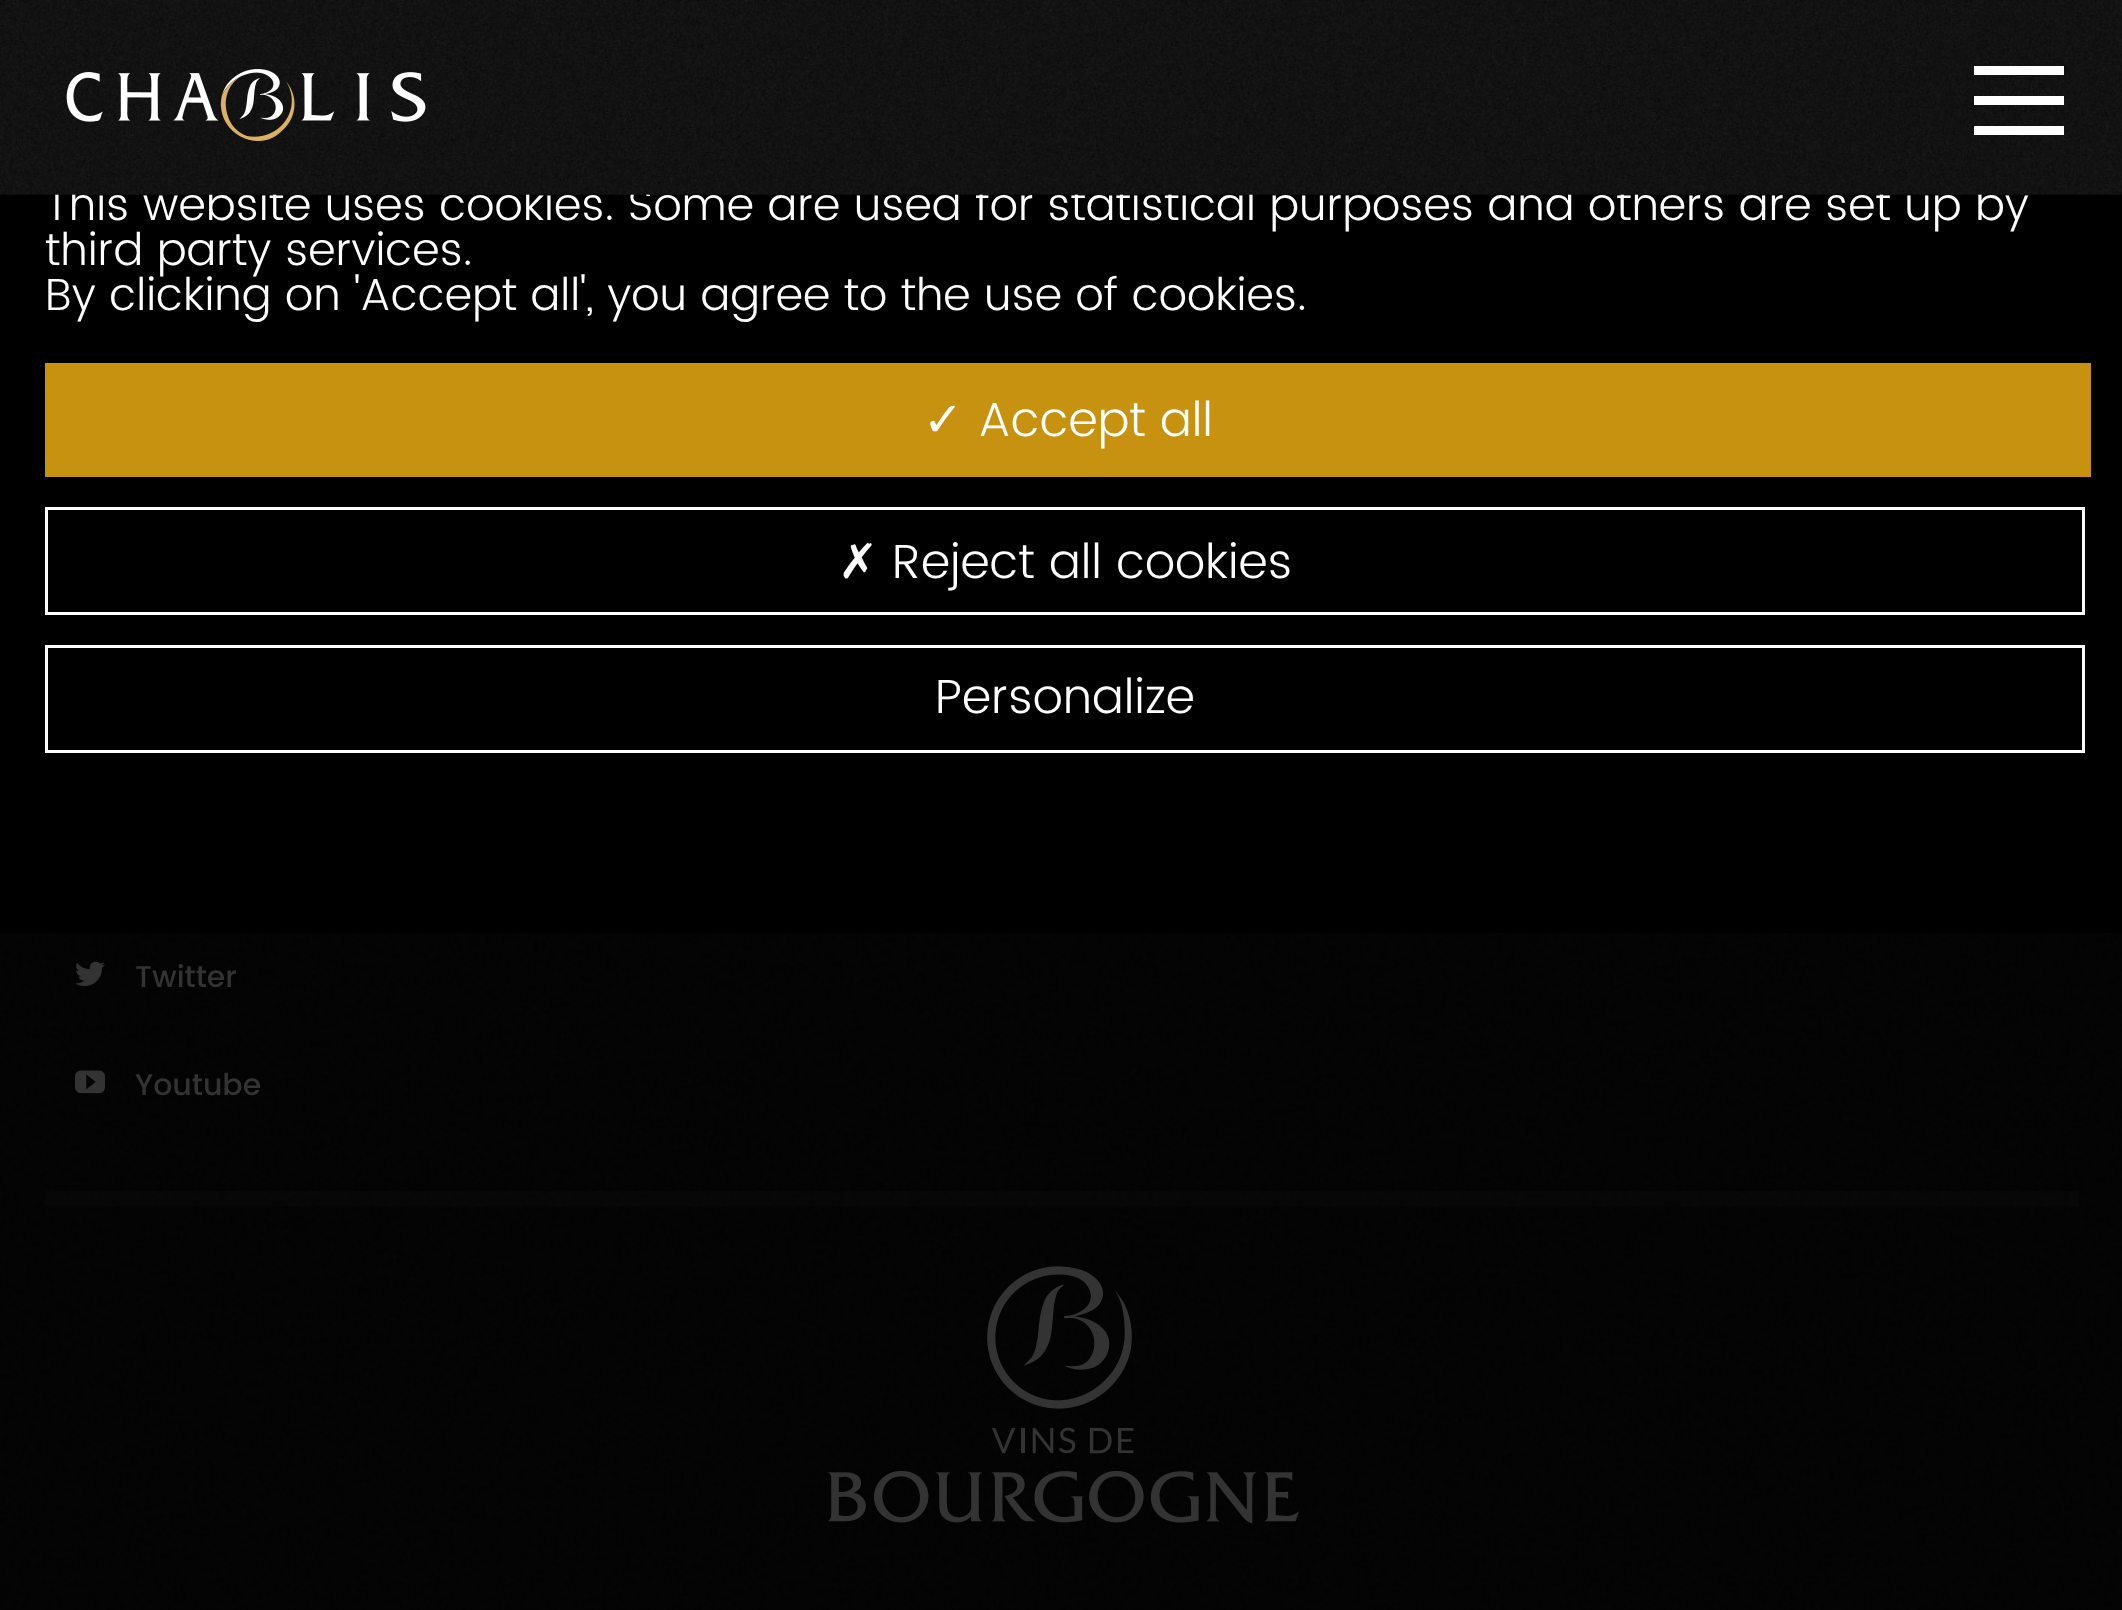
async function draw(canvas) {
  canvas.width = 2122;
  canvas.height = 1610;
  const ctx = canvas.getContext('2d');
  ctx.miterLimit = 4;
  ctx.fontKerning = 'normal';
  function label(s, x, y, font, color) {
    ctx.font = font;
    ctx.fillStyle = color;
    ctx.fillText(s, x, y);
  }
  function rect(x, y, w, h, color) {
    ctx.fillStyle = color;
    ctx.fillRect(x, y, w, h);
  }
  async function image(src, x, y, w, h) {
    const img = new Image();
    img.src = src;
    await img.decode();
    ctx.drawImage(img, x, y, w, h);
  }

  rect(0, 0, 2122, 1610, '#fff');
  rect(0, 194, 2122, 739, '#000');
  label('This website uses cookies. Some are used for statistical purposes and others are set up by', 45, 220, '300 45px Poppins', '#fff');
  label('third party services.', 45, 265, '300 45px Poppins', '#fff');
  label('By clicking on \'Accept all\', you agree to the use of cookies.', 45, 310, '300 45px Poppins', '#fff');
  rect(45, 363, 2046, 114, '#c89211');
  label('✓', 923, 436, '48px DejaVu Sans', '#fff');
  label('Accept all', 978, 436, '300 48px Poppins', '#fff');
  ctx.strokeStyle = '#fff';
  ctx.lineWidth = 3;
  ctx.strokeRect(46.5, 508.5, 2037, 105);
  label('✗', 838, 578, '48px DejaVu Sans', '#fff');
  label('Reject all cookies', 892, 578, '300 48px Poppins', '#fff');
  ctx.strokeRect(46.5, 646.5, 2037, 105);
  label('Personalize', 935, 713, '300 48px Poppins', '#fff');
  await image('assets/img1.png', 0, 933, 2122, 677);
  await image('assets/img2.png', 0, 0, 2122, 195);
  await image('assets/img3.png', 66, 69, 360, 72);
  rect(1974, 126, 90, 9, '#fff');
  rect(1974, 66, 90, 9, '#fff');
  rect(1974, 96, 90, 9, '#fff');
  await image('assets/img4.png', 75, 961, 30, 26);
  label('Twitter', 135, 987, '500 30px Poppins', '#333');
  await image('assets/img5.png', 75, 1070, 30, 24);
  label('Youtube', 135, 1095, '500 30px Poppins', '#333');
  rect(45, 1191, 2034, 15, '#0a0a0a80');
  await image('assets/img6.png', 828, 1266, 471, 258);
}

draw(document.querySelector('canvas'));
